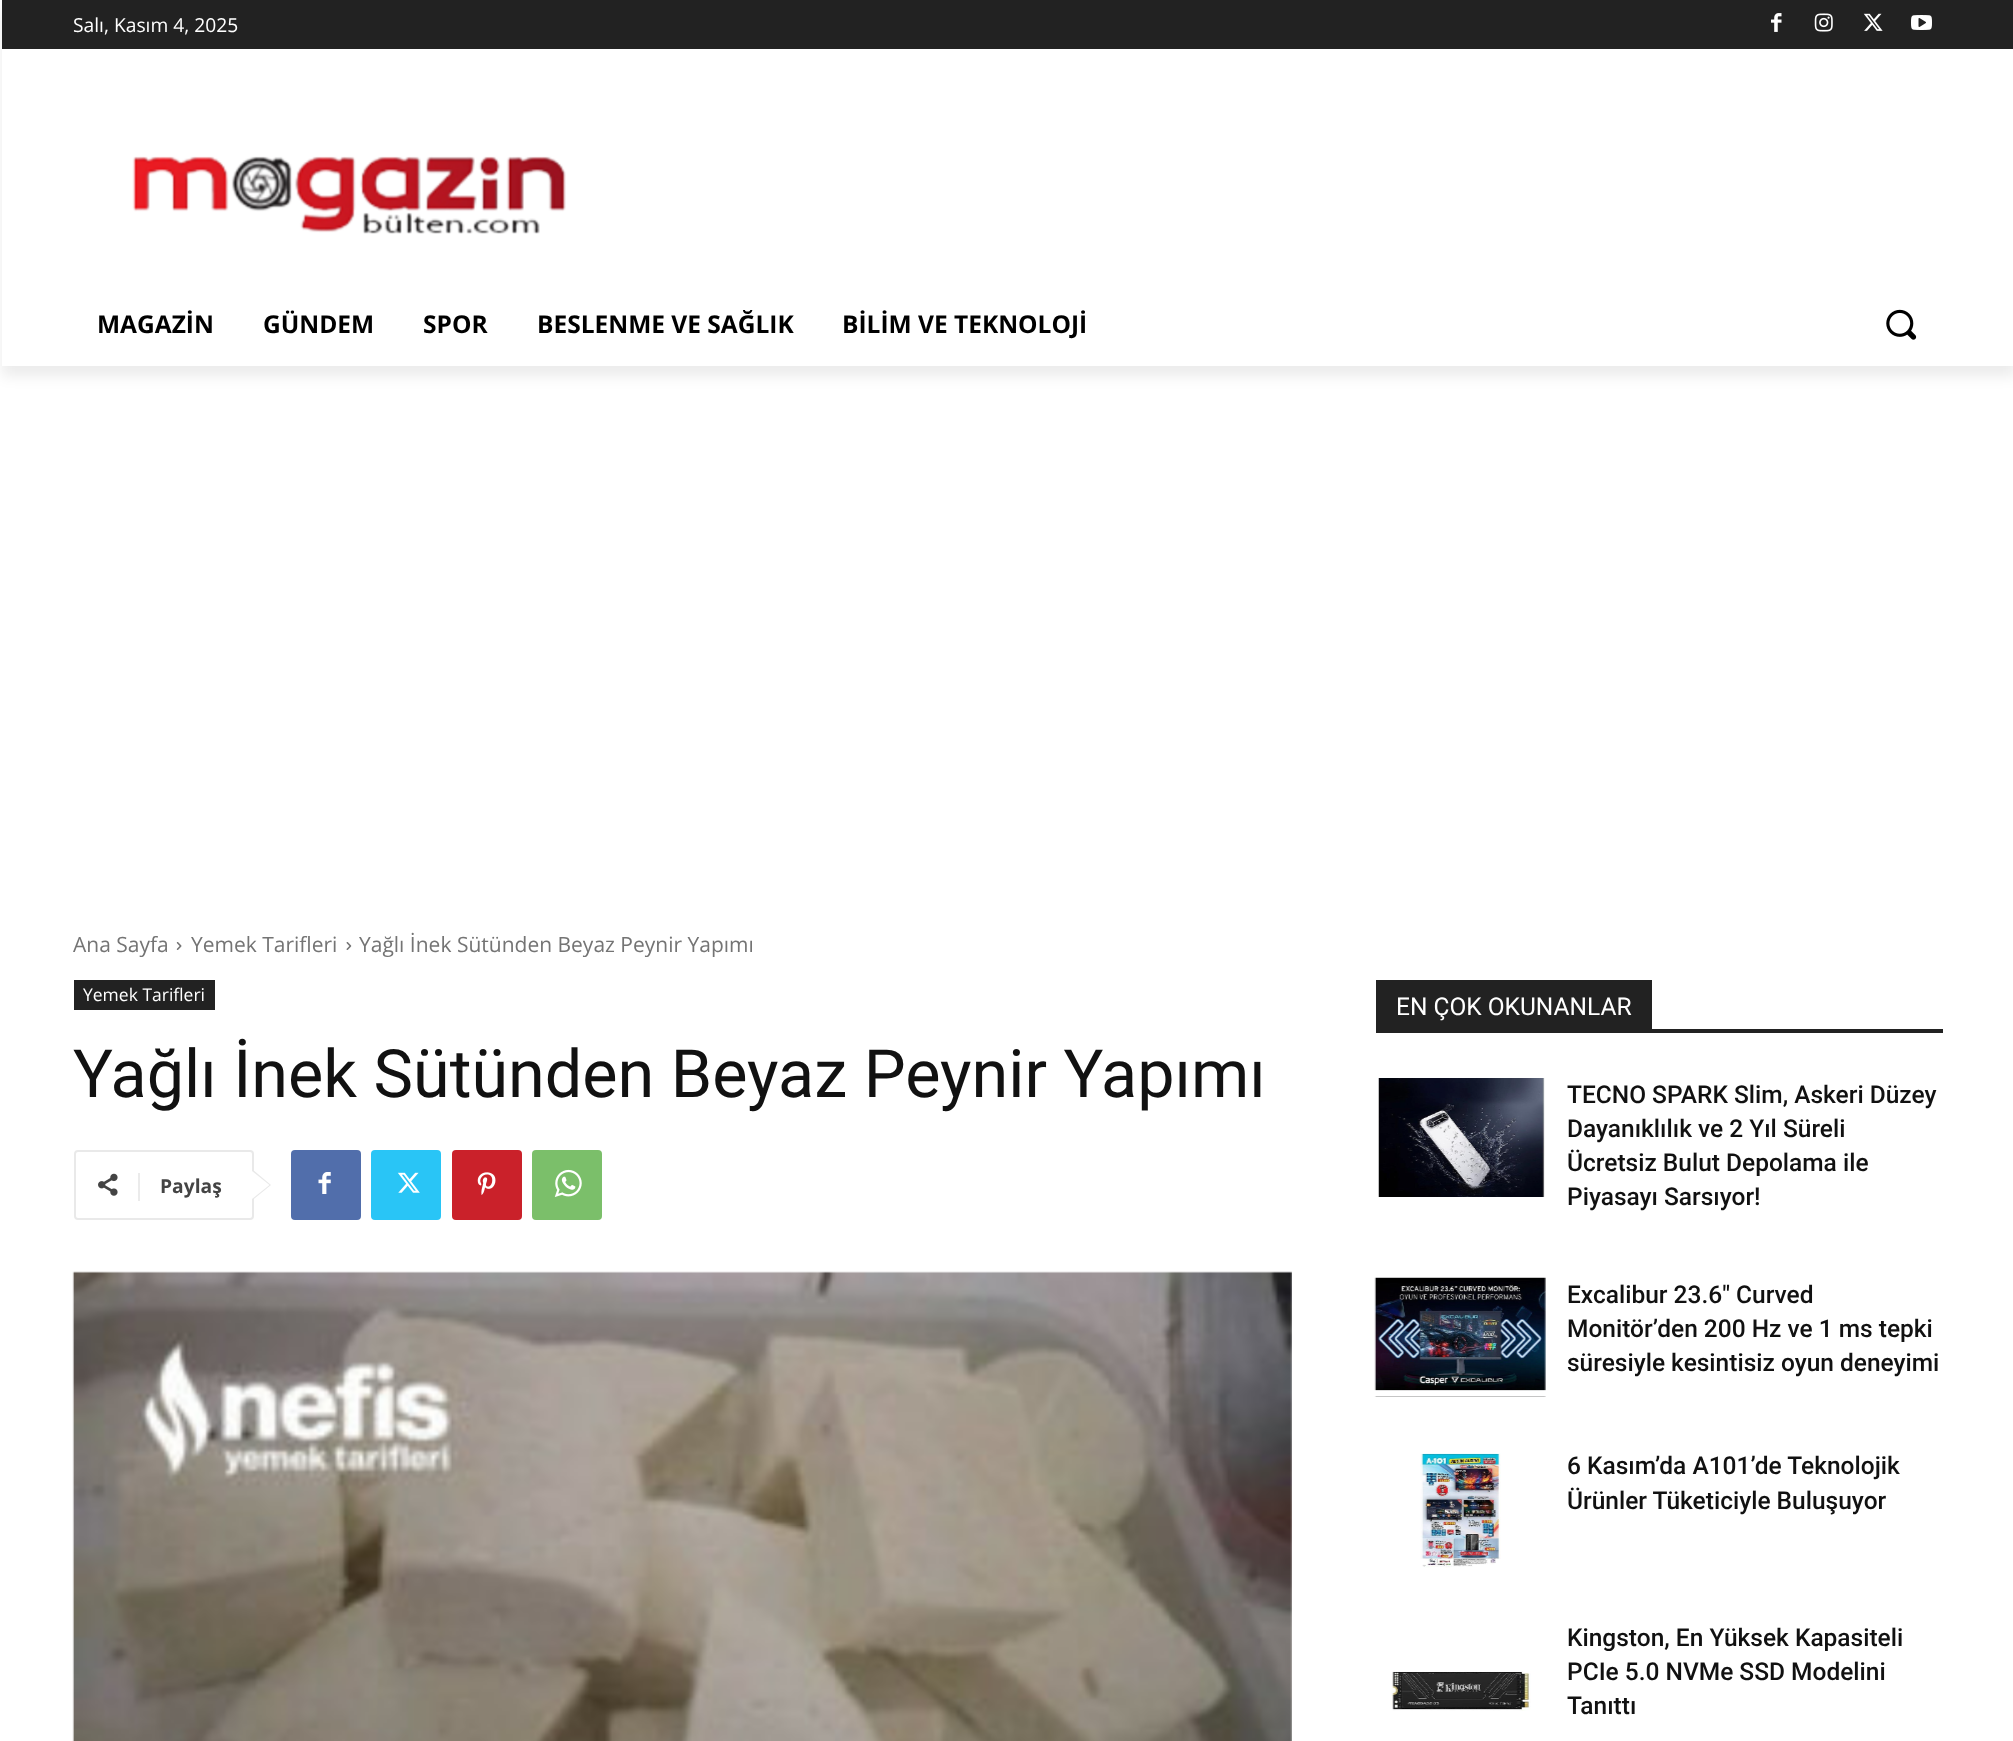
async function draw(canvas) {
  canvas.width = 2013;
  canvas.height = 1741;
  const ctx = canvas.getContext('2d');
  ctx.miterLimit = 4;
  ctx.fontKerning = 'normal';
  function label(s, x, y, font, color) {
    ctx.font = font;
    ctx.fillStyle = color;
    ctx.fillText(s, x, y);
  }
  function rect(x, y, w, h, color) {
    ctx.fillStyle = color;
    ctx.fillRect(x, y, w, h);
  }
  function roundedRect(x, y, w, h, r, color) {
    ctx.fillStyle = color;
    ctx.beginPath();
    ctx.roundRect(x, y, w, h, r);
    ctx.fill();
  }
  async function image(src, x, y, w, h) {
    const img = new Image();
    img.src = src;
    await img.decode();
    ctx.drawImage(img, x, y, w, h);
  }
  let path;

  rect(0, 0, 2013, 1741, '#fff');
  rect(2, 0, 2011, 49, '#222');
  await image('assets/img1.png', 1771, 13, 11, 19);
  await image('assets/img2.png', 1814, 13, 19, 19);
  await image('assets/img3.png', 1863, 13, 20, 18);
  await image('assets/img4.png', 1911, 15, 21, 15);
  await image('assets/img5.png', 132, 156, 434, 78);
  ctx.save();
  path = new Path2D('M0 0H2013V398H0ZM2 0H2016V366H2Z');
  ctx.clip(path, 'evenodd');
  ctx.fillStyle = '#00000014';
  ctx.filter = 'blur(7px)';
  ctx.beginPath();
  ctx.rect(2, 11, 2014, 365);
  ctx.fill();
  ctx.filter = 'none';
  ctx.restore();
  label('Salı, Kasım 4, 2025', 73, 32, '19.25px Open Sans', '#fff');
  label('MAGAZİN', 97, 333, 'bold 24.5px Open Sans', '#000');
  label('GÜNDEM', 263, 333, 'bold 24.5px Open Sans', '#000');
  label('SPOR', 423, 333, 'bold 24.5px Open Sans', '#000');
  label('BESLENME VE SAĞLIK', 537, 333, 'bold 24.5px Open Sans', '#000');
  label('BİLİM VE TEKNOLOJİ', 842, 333, 'bold 24.5px Open Sans', '#000');
  await image('assets/img6.png', 1886, 309, 31, 31);
  label('Ana Sayfa', 73, 952, '21px Open Sans', '#747474');
  await image('assets/img7.png', 176, 942, 6, 8);
  label('Yemek Tarifleri', 191, 952, '21px Open Sans', '#747474');
  await image('assets/img8.png', 346, 942, 6, 8);
  label('Yağlı İnek Sütünden Beyaz Peynir Yapımı', 359, 952, '21px Open Sans', '#747474');
  rect(74, 980, 141, 30, '#222');
  label('Yemek Tarifleri', 83, 1001, '17.5px Open Sans', '#fff');
  label('Yağlı İnek Sütünden Beyaz Peynir Yapımı', 73, 1097, '66.5px Roboto', '#111');
  ctx.beginPath();
  ctx.roundRect(75, 1151, 178, 68, 3);
  ctx.strokeStyle = '#e9e9e9';
  ctx.lineWidth = 2;
  ctx.stroke();
  ctx.fillStyle = '#e9e9e9';
  path = new Path2D('M252 1200.5V1169L271 1185Z');
  ctx.fill(path);
  await image('assets/img9.png', 98, 1173, 20, 23);
  rect(138, 1173, 2, 28, '#ebebeb');
  label('Paylaş', 160, 1193, 'bold 19.25px Open Sans', '#444');
  ctx.fillStyle = '#fff';
  path = new Path2D('M252 1199V1171L269.5 1185Z');
  ctx.fill(path);
  roundedRect(291, 1150, 70, 70, 4, '#516eab');
  await image('assets/img10.png', 318, 1172, 13, 22);
  roundedRect(371, 1150, 70, 70, 4, '#29c5f6');
  await image('assets/img11.png', 397, 1172, 23, 21);
  roundedRect(452, 1150, 70, 70, 4, '#ca212a');
  await image('assets/img12.png', 477, 1172, 19, 23);
  roundedRect(532, 1150, 70, 70, 4, '#7bbf6a');
  await image('assets/img13.png', 554, 1169, 28, 28);
  await image('assets/img14.png', 72, 1271, 1220, 470);
  rect(1376, 1029, 567, 4, '#222');
  rect(1376, 980, 276, 49, '#222');
  label('EN ÇOK OKUNANLAR', 1396, 1015, '24.5px Roboto', '#fff');
  await image('assets/img15.png', 1378, 1078, 167, 119);
  label('TECNO SPARK Slim, Askeri Düzey', 1567, 1103, '500 24.5px Roboto', '#111');
  label('Dayanıklılık ve 2 Yıl Süreli', 1567, 1137, '500 24.5px Roboto', '#111');
  label('Ücretsiz Bulut Depolama ile', 1567, 1171, '500 24.5px Roboto', '#111');
  label('Piyasayı Sarsıyor!', 1567, 1205, '500 24.5px Roboto', '#111');
  await image('assets/img16.png', 1374, 1277, 172, 120);
  label('Excalibur 23.6″ Curved', 1567, 1303, '500 24.5px Roboto', '#111');
  label('Monitör’den 200 Hz ve 1 ms tepki', 1567, 1337, '500 24.5px Roboto', '#111');
  label('süresiyle kesintisiz oyun deneyimi', 1567, 1371, '500 24.5px Roboto', '#111');
  await image('assets/img17.png', 1420, 1453, 81, 115);
  label('6 Kasım’da A101’de Teknolojik', 1567, 1474, '500 24.5px Roboto', '#111');
  label('Ürünler Tüketiciyle Buluşuyor', 1567, 1509, '500 24.5px Roboto', '#111');
  await image('assets/img18.png', 1391, 1671, 140, 40);
  label('Kingston, En Yüksek Kapasiteli', 1567, 1646, '500 24.5px Roboto', '#111');
  label('PCIe 5.0 NVMe SSD Modelini', 1567, 1680, '500 24.5px Roboto', '#111');
  label('Tanıttı', 1567, 1714, '500 24.5px Roboto', '#111');
}

draw(document.querySelector('canvas'));
